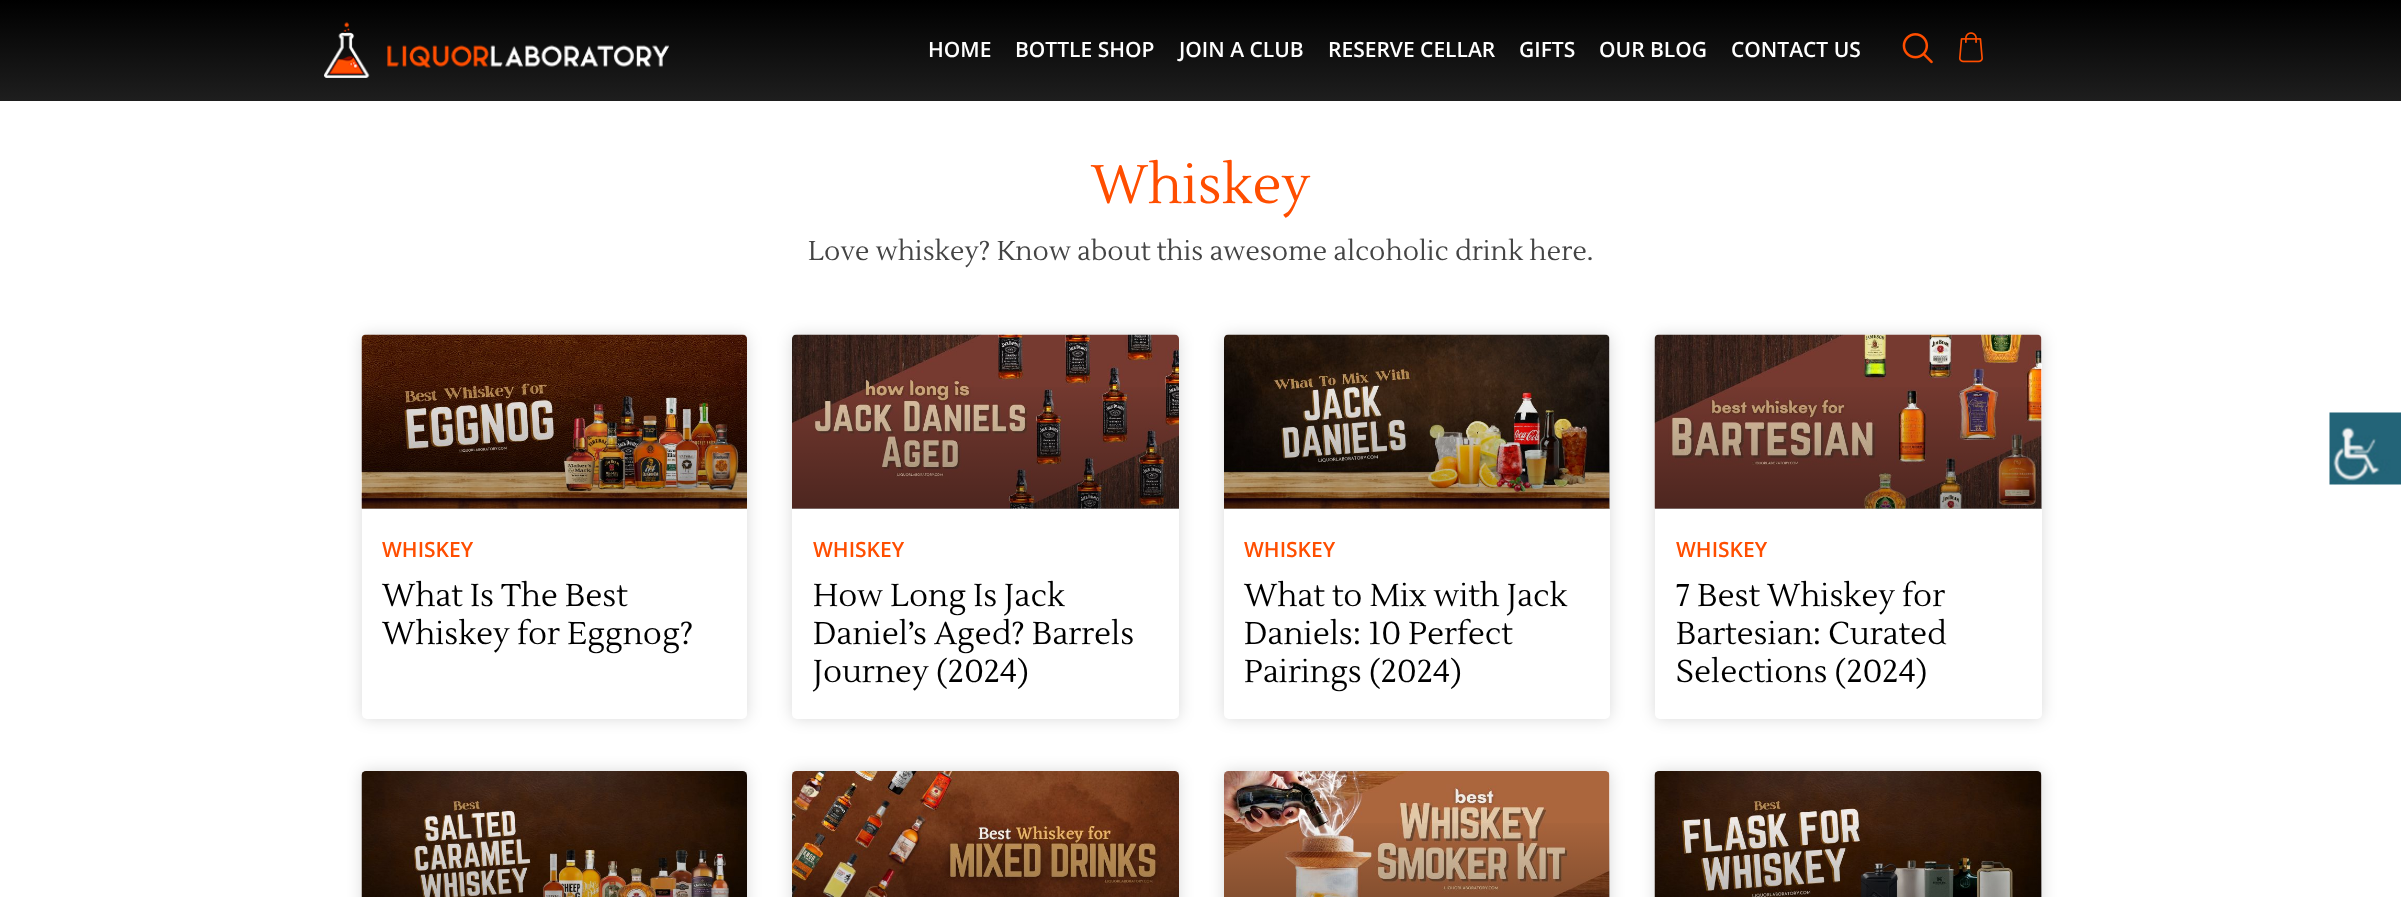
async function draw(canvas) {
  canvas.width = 2401;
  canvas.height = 897;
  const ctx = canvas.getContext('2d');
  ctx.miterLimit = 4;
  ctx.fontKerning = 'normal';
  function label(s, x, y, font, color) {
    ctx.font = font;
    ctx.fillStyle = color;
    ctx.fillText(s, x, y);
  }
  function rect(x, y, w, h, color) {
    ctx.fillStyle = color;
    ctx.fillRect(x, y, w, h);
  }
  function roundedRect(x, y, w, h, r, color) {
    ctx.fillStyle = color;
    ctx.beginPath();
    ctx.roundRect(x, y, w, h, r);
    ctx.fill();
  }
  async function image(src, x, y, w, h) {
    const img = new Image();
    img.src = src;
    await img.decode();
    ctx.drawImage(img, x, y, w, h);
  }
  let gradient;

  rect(0, 0, 2401, 897, '#fff');
  gradient = ctx.createLinearGradient(1201, 0, 1201, 101);
  gradient.addColorStop(0, '#000');
  gradient.addColorStop(1, '#1e1e1e');
  ctx.fillStyle = gradient;
  ctx.fillRect(0, 0, 2401, 101);
  await image('assets/img1.png', 324, 22, 345, 56);
  label('HOME', 928, 57, '600 21px Open Sans', '#fff');
  label('BOTTLE SHOP', 1015, 57, '600 21px Open Sans', '#fff');
  label('JOIN A CLUB', 1179, 57, '600 21px Open Sans', '#fff');
  label('RESERVE CELLAR', 1328, 57, '600 21px Open Sans', '#fff');
  label('GIFTS', 1519, 57, '600 21px Open Sans', '#fff');
  label('OUR BLOG', 1599, 57, '600 21px Open Sans', '#fff');
  label('CONTACT US', 1731, 57, '600 21px Open Sans', '#fff');
  await image('assets/img2.png', 1902, 33, 31, 31);
  await image('assets/img3.png', 1959, 32, 24, 31);
  label('Whiskey', 1091, 203, '54px Lustria', '#ff4e00');
  label('Love whiskey? Know about this awesome alcoholic drink here.', 808, 260, '27px Lustria', '#444');
  ctx.fillStyle = '#00000026';
  ctx.filter = 'blur(7.5px)';
  ctx.beginPath();
  ctx.roundRect(362, 335, 385, 384, 5);
  ctx.fill();
  ctx.filter = 'none';
  roundedRect(362, 335, 385, 384, 5, '#fff');
  await image('assets/img4.png', 361, 334, 386, 175);
  gradient = ctx.createLinearGradient(554, 509, 554, 335);
  gradient.addColorStop(0, '#00000059');
  gradient.addColorStop(0.75, '#00000000');
  ctx.fillStyle = gradient;
  ctx.fillRect(362, 387, 385, 122);
  label('WHISKEY', 382, 557, '600 21px Open Sans', '#ff4e00');
  label('What Is The Best', 382, 606, '31.5px Lustria', '#000');
  label('Whiskey for Eggnog?', 382, 644, '31.5px Lustria', '#000');
  ctx.fillStyle = '#00000026';
  ctx.filter = 'blur(7.5px)';
  ctx.beginPath();
  ctx.roundRect(792, 335, 387, 384, 5);
  ctx.fill();
  ctx.filter = 'none';
  roundedRect(792, 335, 387, 384, 5, '#fff');
  await image('assets/img5.png', 792, 334, 387, 175);
  gradient = ctx.createLinearGradient(986, 509, 986, 335);
  gradient.addColorStop(0, '#00000059');
  gradient.addColorStop(0.75, '#00000000');
  ctx.fillStyle = gradient;
  ctx.fillRect(792, 387, 387, 122);
  label('WHISKEY', 813, 557, '600 21px Open Sans', '#ff4e00');
  label('How Long Is Jack', 813, 606, '31.5px Lustria', '#000');
  label('Daniel’s Aged? Barrels', 813, 644, '31.5px Lustria', '#000');
  label('Journey (2024)', 813, 682, '31.5px Lustria', '#000');
  ctx.fillStyle = '#00000026';
  ctx.filter = 'blur(7.5px)';
  ctx.beginPath();
  ctx.roundRect(1224, 335, 386, 384, 5);
  ctx.fill();
  ctx.filter = 'none';
  roundedRect(1224, 335, 386, 384, 5, '#fff');
  await image('assets/img6.png', 1224, 334, 386, 175);
  gradient = ctx.createLinearGradient(1417, 509, 1417, 335);
  gradient.addColorStop(0, '#00000059');
  gradient.addColorStop(0.75, '#00000000');
  ctx.fillStyle = gradient;
  ctx.fillRect(1224, 387, 386, 122);
  label('WHISKEY', 1244, 557, '600 21px Open Sans', '#ff4e00');
  label('What to Mix with Jack', 1244, 606, '31.5px Lustria', '#000');
  label('Daniels: 10 Perfect', 1244, 644, '31.5px Lustria', '#000');
  label('Pairings (2024)', 1244, 682, '31.5px Lustria', '#000');
  ctx.fillStyle = '#00000026';
  ctx.filter = 'blur(7.5px)';
  ctx.beginPath();
  ctx.roundRect(1655, 335, 387, 384, 5);
  ctx.fill();
  ctx.filter = 'none';
  roundedRect(1655, 335, 387, 384, 5, '#fff');
  await image('assets/img7.png', 1654, 334, 388, 175);
  gradient = ctx.createLinearGradient(1848, 509, 1848, 335);
  gradient.addColorStop(0, '#00000059');
  gradient.addColorStop(0.75, '#00000000');
  ctx.fillStyle = gradient;
  ctx.fillRect(1655, 387, 387, 122);
  label('WHISKEY', 1676, 557, '600 21px Open Sans', '#ff4e00');
  label('7 Best Whiskey for', 1676, 606, '31.5px Lustria', '#000');
  label('Bartesian: Curated', 1676, 644, '31.5px Lustria', '#000');
  label('Selections (2024)', 1676, 682, '31.5px Lustria', '#000');
  ctx.fillStyle = '#00000026';
  ctx.filter = 'blur(7.5px)';
  ctx.beginPath();
  ctx.roundRect(362, 771, 385, 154, 5);
  ctx.fill();
  ctx.filter = 'none';
  await image('assets/img8.png', 361, 771, 386, 126);
  gradient = ctx.createLinearGradient(554, 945, 554, 771);
  gradient.addColorStop(0, '#00000059');
  gradient.addColorStop(0.75, '#00000000');
  ctx.fillStyle = gradient;
  ctx.fillRect(362, 823, 385, 74);
  ctx.fillStyle = '#00000026';
  ctx.filter = 'blur(7.5px)';
  ctx.beginPath();
  ctx.roundRect(792, 771, 387, 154, 5);
  ctx.fill();
  ctx.filter = 'none';
  await image('assets/img9.png', 792, 771, 387, 126);
  gradient = ctx.createLinearGradient(986, 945, 986, 771);
  gradient.addColorStop(0, '#00000059');
  gradient.addColorStop(0.75, '#00000000');
  ctx.fillStyle = gradient;
  ctx.fillRect(792, 823, 387, 74);
  ctx.fillStyle = '#00000026';
  ctx.filter = 'blur(7.5px)';
  ctx.beginPath();
  ctx.roundRect(1224, 771, 386, 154, 5);
  ctx.fill();
  ctx.filter = 'none';
  roundedRect(1224, 771, 386, 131, 5, '#fff');
  await image('assets/img10.png', 1224, 771, 386, 126);
  gradient = ctx.createLinearGradient(1417, 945, 1417, 771);
  gradient.addColorStop(0, '#00000059');
  gradient.addColorStop(0.75, '#00000000');
  ctx.fillStyle = gradient;
  ctx.fillRect(1224, 823, 386, 74);
  ctx.fillStyle = '#00000026';
  ctx.filter = 'blur(7.5px)';
  ctx.beginPath();
  ctx.roundRect(1655, 771, 387, 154, 5);
  ctx.fill();
  ctx.filter = 'none';
  roundedRect(1655, 771, 387, 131, 5, '#fff');
  await image('assets/img11.png', 1654, 771, 388, 126);
  gradient = ctx.createLinearGradient(1848, 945, 1848, 771);
  gradient.addColorStop(0, '#00000059');
  gradient.addColorStop(0.75, '#00000000');
  ctx.fillStyle = gradient;
  ctx.fillRect(1655, 823, 387, 74);
  await image('assets/img12.png', 2329, 412, 72, 73);
}

draw(document.querySelector('canvas'));
